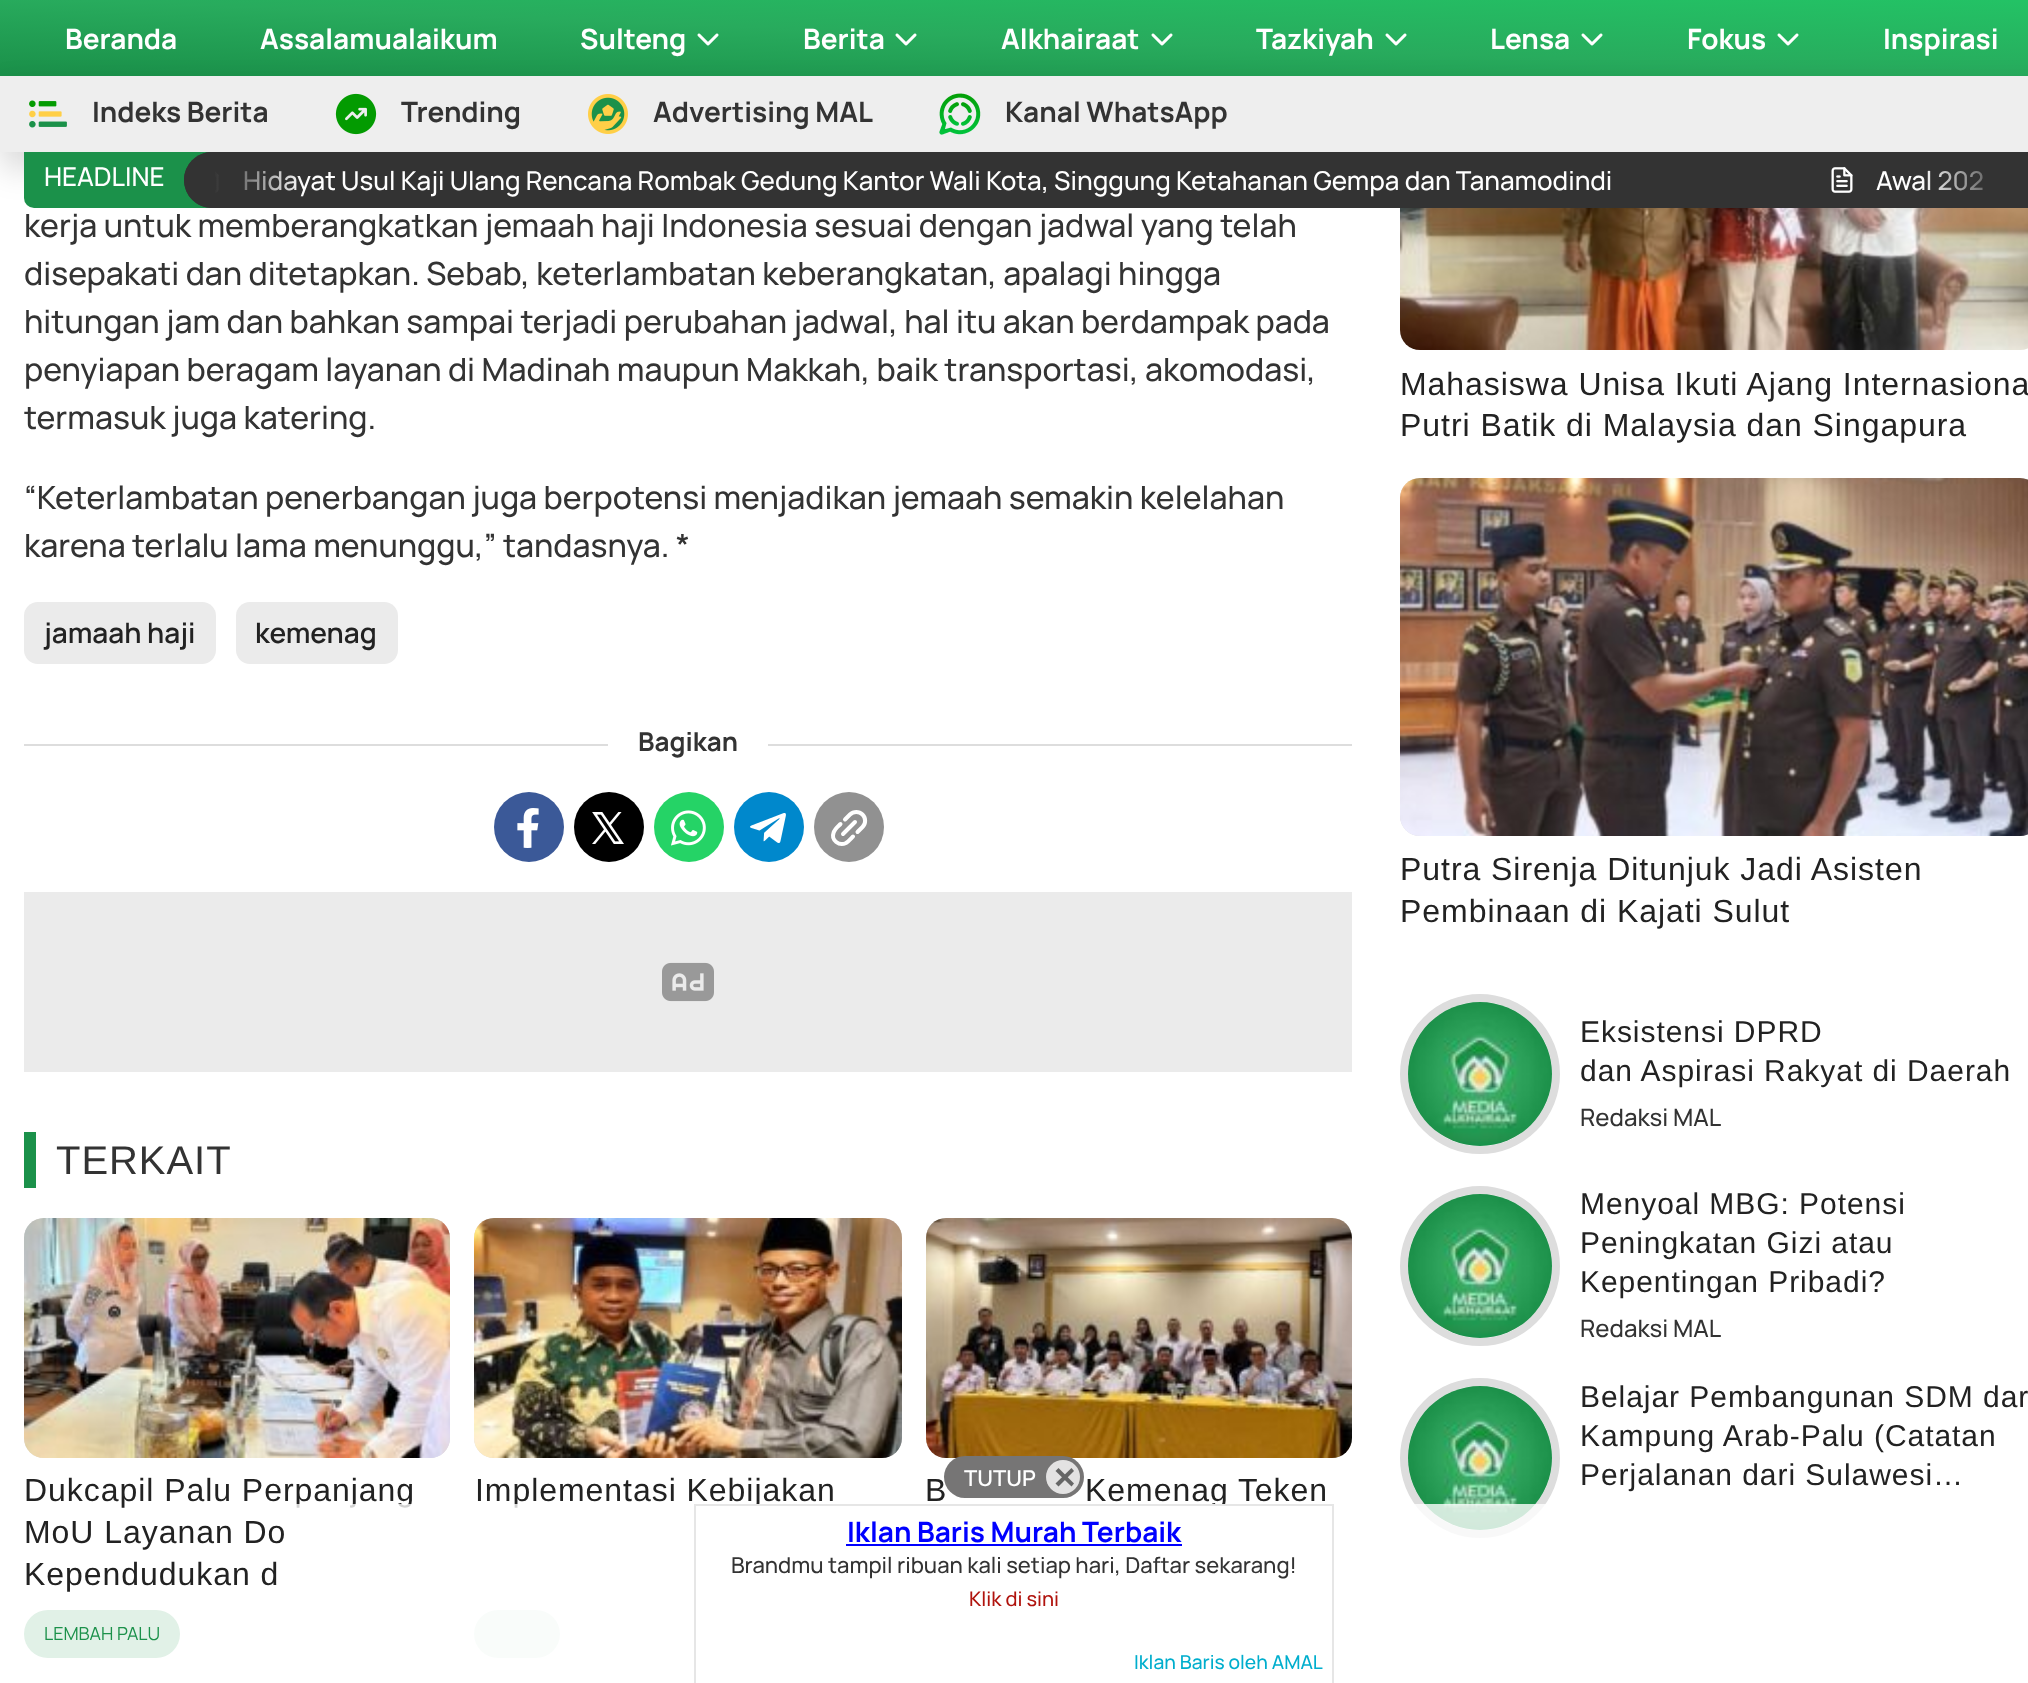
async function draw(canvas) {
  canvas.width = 2028;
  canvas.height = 1683;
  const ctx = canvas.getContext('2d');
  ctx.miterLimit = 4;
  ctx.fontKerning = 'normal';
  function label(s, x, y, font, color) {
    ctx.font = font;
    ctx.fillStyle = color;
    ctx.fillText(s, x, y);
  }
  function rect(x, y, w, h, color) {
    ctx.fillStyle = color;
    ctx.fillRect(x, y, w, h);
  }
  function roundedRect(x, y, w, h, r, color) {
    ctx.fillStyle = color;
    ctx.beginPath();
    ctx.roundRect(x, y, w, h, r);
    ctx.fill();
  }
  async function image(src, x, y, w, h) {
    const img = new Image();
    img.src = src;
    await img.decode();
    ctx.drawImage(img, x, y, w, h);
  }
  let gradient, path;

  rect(0, 0, 2028, 1683, '#fff');
  gradient = ctx.createLinearGradient(1029, 114, 1035, -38);
  gradient.addColorStop(0, '#1b914a');
  gradient.addColorStop(0.5, '#28ab5d');
  gradient.addColorStop(1, '#23c265');
  ctx.fillStyle = gradient;
  ctx.fillRect(0, 0, 2028, 76);
  await image('assets/img21.png', 1400, 208, 628, 142);
  ctx.fillStyle = '#00000026';
  ctx.filter = 'blur(16px)';
  ctx.beginPath();
  ctx.rect(0, 92, 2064, 76);
  ctx.fill();
  ctx.filter = 'none';
  label('Beranda', 65, 49, 'bold 28px Manrope', '#fff');
  label('Assalamualaikum', 260, 49, 'bold 28px Manrope', '#fff');
  label('Sulteng', 580, 49, 'bold 28px Manrope', '#fff');
  await image('assets/img1.png', 697, 33, 22, 13);
  label('Berita', 803, 49, 'bold 28px Manrope', '#fff');
  await image('assets/img2.png', 895, 33, 22, 13);
  label('Alkhairaat', 1001, 49, 'bold 28px Manrope', '#fff');
  await image('assets/img3.png', 1151, 33, 22, 13);
  label('Tazkiyah', 1256, 49, 'bold 28px Manrope', '#fff');
  await image('assets/img4.png', 1385, 33, 22, 13);
  label('Lensa', 1490, 49, 'bold 28px Manrope', '#fff');
  await image('assets/img5.png', 1581, 33, 22, 13);
  label('Fokus', 1687, 49, 'bold 28px Manrope', '#fff');
  await image('assets/img6.png', 1777, 33, 22, 13);
  label('Inspirasi', 1883, 49, 'bold 28px Manrope', '#fff');
  rect(0, 76, 2028, 76, '#eee');
  await image('assets/img7.png', 29, 100, 38, 28);
  label('Indeks Berita', 92, 122, 'bold 28px Manrope', '#333');
  await image('assets/img8.png', 335, 93, 42, 42);
  label('Trending', 401, 122, 'bold 28px Manrope', '#333');
  await image('assets/img9.png', 588, 94, 40, 40);
  label('Advertising MAL', 653, 122, 'bold 28px Manrope', '#333');
  await image('assets/img10.png', 939, 93, 42, 42);
  label('Kanal WhatsApp', 1005, 122, 'bold 28px Manrope', '#333');
  ctx.fillStyle = '#1b914a';
  ctx.beginPath();
  ctx.roundRect(24, 152, 200, 56, [0, 0, 0, 10]);
  ctx.fill();
  label('HEADLINE', 44, 186, '500 26px Manrope', '#fff');
  ctx.fillStyle = '#333';
  path = new Path2D('M212 152H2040V198C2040 203.5 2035.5 208 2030 208H212C196.5 208 184 195.5 184 180C184 164.5 196.5 152 212 152Z');
  ctx.fill(path);
  await image('assets/img11.png', 215, 171, 4, 22);
  label('Hidayat Usul Kaji Ulang Rencana Rombak Gedung Kantor Wali Kota, Singgung Ketahanan Gempa dan Tanamodindi', 243, 190, '500 26px Manrope', '#fff');
  gradient = ctx.createLinearGradient(184, 180, 304, 180);
  gradient.addColorStop(0.25, '#333');
  gradient.addColorStop(1, '#33333300');
  ctx.fillStyle = gradient;
  ctx.beginPath();
  ctx.roundRect(184, 152, 120, 56, [28, 0, 0, 28]);
  ctx.fill();
  await image('assets/img12.png', 1831, 167, 22, 26);
  label('Awal 202', 1876, 190, '500 26px Manrope', '#fff');
  gradient = ctx.createLinearGradient(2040, 180, 1920, 180);
  gradient.addColorStop(0.25, '#333');
  gradient.addColorStop(1, '#33333300');
  ctx.fillStyle = gradient;
  ctx.fillRect(1922, 170, 61, 21);
  label('kerja untuk memberangkatkan jemaah haji Indonesia sesuai dengan jadwal yang telah', 24, 237, '500 32px Manrope', '#333');
  label('disepakati dan ditetapkan. Sebab, keterlambatan keberangkatan, apalagi hingga', 24, 285, '500 32px Manrope', '#333');
  label('hitungan jam dan bahkan sampai terjadi perubahan jadwal, hal itu akan berdampak pada', 24, 333, '500 32px Manrope', '#333');
  label('penyiapan beragam layanan di Madinah maupun Makkah, baik transportasi, akomodasi,', 24, 381, '500 32px Manrope', '#333');
  label('termasuk juga katering.', 24, 429, '500 32px Manrope', '#333');
  label('“Keterlambatan penerbangan juga berpotensi menjadikan jemaah semakin kelelahan', 24, 509, '500 32px Manrope', '#333');
  label('karena terlalu lama menunggu,” tandasnya. *', 24, 557, '500 32px Manrope', '#333');
  roundedRect(24, 602, 192, 62, 14, '#ebebeb');
  label('jamaah haji', 44, 643, '600 28px Manrope', '#222');
  roundedRect(236, 602, 162, 62, 14, '#ebebeb');
  label('kemenag', 255, 643, '600 28px Manrope', '#222');
  rect(24, 744, 1328, 2, '#ddd');
  rect(608, 744, 160, 2, '#fff');
  label('Bagikan', 638, 751, 'bold 26px Manrope', '#333');
  ctx.fillStyle = '#3b5998';
  ctx.beginPath();
  ctx.arc(529, 827, 35, 0, 2 * Math.PI);
  ctx.fill();
  await image('assets/img13.png', 517, 808, 22, 40);
  ctx.fillStyle = '#000';
  ctx.beginPath();
  ctx.arc(609, 827, 35, 0, 2 * Math.PI);
  ctx.fill();
  await image('assets/img14.png', 592, 812, 32, 32);
  ctx.fillStyle = '#25d366';
  ctx.beginPath();
  ctx.arc(689, 827, 35, 0, 2 * Math.PI);
  ctx.fill();
  await image('assets/img15.png', 671, 810, 35, 36);
  ctx.fillStyle = '#08c';
  ctx.beginPath();
  ctx.arc(769, 827, 35, 0, 2 * Math.PI);
  ctx.fill();
  await image('assets/img16.png', 750, 813, 36, 30);
  ctx.fillStyle = '#919191';
  ctx.beginPath();
  ctx.arc(849, 827, 35, 0, 2 * Math.PI);
  ctx.fill();
  path = new Path2D('M843 834L855 822M853 836.5C851 838.5 848.5 841.5 846 843C839 846.5 831 840 833.5 833C834.5 829 838 826.5 840.5 824M857.5 832L862.5 827C866 823.5 866 818 862.5 814.5C859 811 853.5 811 850 814.5L845 819.5');
  ctx.strokeStyle = '#fff';
  ctx.lineWidth = 4;
  ctx.lineCap = 'round';
  ctx.lineJoin = 'round';
  ctx.stroke(path);
  rect(24, 892, 1328, 180, '#ebebeb');
  await image('assets/img17.png', 662, 962, 52, 40);
  rect(24, 1132, 12, 56, '#1b914a');
  ctx.letterSpacing = '0.95px';
  label('TERKAIT', 56, 1174, '40px Liberation Sans', '#333');
  roundedRect(24, 1218, 426, 240, 20, '#ddd');
  await image('assets/img18.png', 24, 1218, 426, 240);
  label('Dukcapil Palu Perpanjang', 24, 1501, '32px Liberation Sans', '#222');
  label('MoU Layanan Do', 24, 1543, '32px Liberation Sans', '#222');
  label('Kependudukan d', 24, 1585, '32px Liberation Sans', '#222');
  roundedRect(24, 1610, 156, 48, 24, '#e1f1e7');
  ctx.letterSpacing = '0px';
  label('LEMBAH PALU', 44, 1640, '18px Manrope', '#1b914a');
  roundedRect(474, 1218, 428, 240, 20, '#ddd');
  await image('assets/img19.png', 474, 1218, 428, 240);
  ctx.letterSpacing = '0.95px';
  label('Implementasi Kebijakan', 475, 1501, '32px Liberation Sans', '#222');
  roundedRect(474, 1610, 86, 48, 24, '#e1f1e7');
  roundedRect(926, 1218, 426, 240, 20, '#ddd');
  await image('assets/img20.png', 926, 1218, 426, 240);
  label('B', 925, 1501, '32px Liberation Sans', '#222');
  label('Kemenag Teken', 1085, 1501, '32px Liberation Sans', '#222');
  label('Mahasiswa Unisa Ikuti Ajang Internasiona', 1400, 395, '32px Liberation Sans', '#222');
  label('Putri Batik di Malaysia dan Singapura', 1400, 436, '32px Liberation Sans', '#222');
  roundedRect(1400, 478, 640, 358, 20, '#ddd');
  await image('assets/img22.png', 1400, 478, 628, 358);
  label('Putra Sirenja Ditunjuk Jadi Asisten', 1400, 880, '32px Liberation Sans', '#222');
  label('Pembinaan di Kajati Sulut', 1400, 922, '32px Liberation Sans', '#222');
  ctx.beginPath();
  ctx.arc(1480, 1074, 76, 0, 2 * Math.PI);
  ctx.strokeStyle = '#ddd';
  ctx.lineWidth = 8;
  ctx.stroke();
  ctx.fillStyle = '#ddd';
  ctx.beginPath();
  ctx.arc(1480, 1074, 72, 0, 2 * Math.PI);
  ctx.fill();
  await image('assets/img23.png', 1408, 1002, 144, 144);
  label('Eksistensi DPRD', 1580, 1042, '30px Liberation Sans', '#222');
  label('dan Aspirasi Rakyat di Daerah', 1580, 1081, '30px Liberation Sans', '#222');
  ctx.letterSpacing = '0px';
  label('Redaksi MAL', 1580, 1126, '500 24px Manrope', '#333');
  ctx.beginPath();
  ctx.arc(1480, 1266, 76, 0, 2 * Math.PI);
  ctx.stroke();
  ctx.fillStyle = '#ddd';
  ctx.beginPath();
  ctx.arc(1480, 1266, 72, 0, 2 * Math.PI);
  ctx.fill();
  await image('assets/img24.png', 1408, 1194, 144, 144);
  ctx.letterSpacing = '0.95px';
  label('Menyoal MBG: Potensi', 1580, 1214, '30px Liberation Sans', '#222');
  label('Peningkatan Gizi atau', 1580, 1253, '30px Liberation Sans', '#222');
  label('Kepentingan Pribadi?', 1580, 1292, '30px Liberation Sans', '#222');
  ctx.letterSpacing = '0px';
  label('Redaksi MAL', 1580, 1337, '500 24px Manrope', '#333');
  ctx.beginPath();
  ctx.arc(1480, 1458, 76, 0, 2 * Math.PI);
  ctx.stroke();
  ctx.fillStyle = '#ddd';
  ctx.beginPath();
  ctx.arc(1480, 1458, 72, 0, 2 * Math.PI);
  ctx.fill();
  await image('assets/img25.png', 1408, 1386, 144, 144);
  ctx.letterSpacing = '0.95px';
  label('Belajar Pembangunan SDM dar', 1580, 1407, '30px Liberation Sans', '#222');
  label('Kampung Arab-Palu (Catatan', 1580, 1446, '30px Liberation Sans', '#222');
  label('Perjalanan dari Sulawesi…', 1580, 1485, '30px Liberation Sans', '#222');
  rect(296, 1504, 1250, 154, '#ffffffcc');
  roundedRect(944, 1456, 140, 42, 21, '#767575');
  ctx.letterSpacing = '0px';
  label('TUTUP', 964, 1486, '600 22px Manrope', '#fff');
  ctx.fillStyle = '#e3e2e2';
  ctx.beginPath();
  ctx.arc(1063, 1477, 17, 0, 2 * Math.PI);
  ctx.fill();
  ctx.fillStyle = '#666';
  path = new Path2D('M1055.5 1483.5L1071.5 1468L1074 1471L1058.5 1486.5Z');
  ctx.fill(path);
  path = new Path2D('M1058.5 1468L1074 1483.5L1071.5 1486.5L1055.5 1471Z');
  ctx.fill(path);
  rect(753, 1506, 471, 2, '#fff');
  ctx.strokeStyle = '#e6e6e6';
  ctx.lineWidth = 2;
  ctx.lineJoin = 'miter';
  ctx.strokeRect(695, 1505, 638, 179);
  label('Iklan Baris Murah Terbaik', 847, 1542, 'bold 28px Manrope', '#00f');
  rect(846, 1544, 336, 2, '#00f');
  label('Brandmu tampil ribuan kali setiap hari, Daftar sekarang!', 731, 1573, '500 22px Manrope', '#333');
  label('Klik di sini', 969, 1606, '500 20px Manrope', '#b0130d');
  label('Iklan Baris oleh AMAL', 1134, 1669, '500 19.25px Manrope', '#00aecd');
}

draw(document.querySelector('canvas'));
